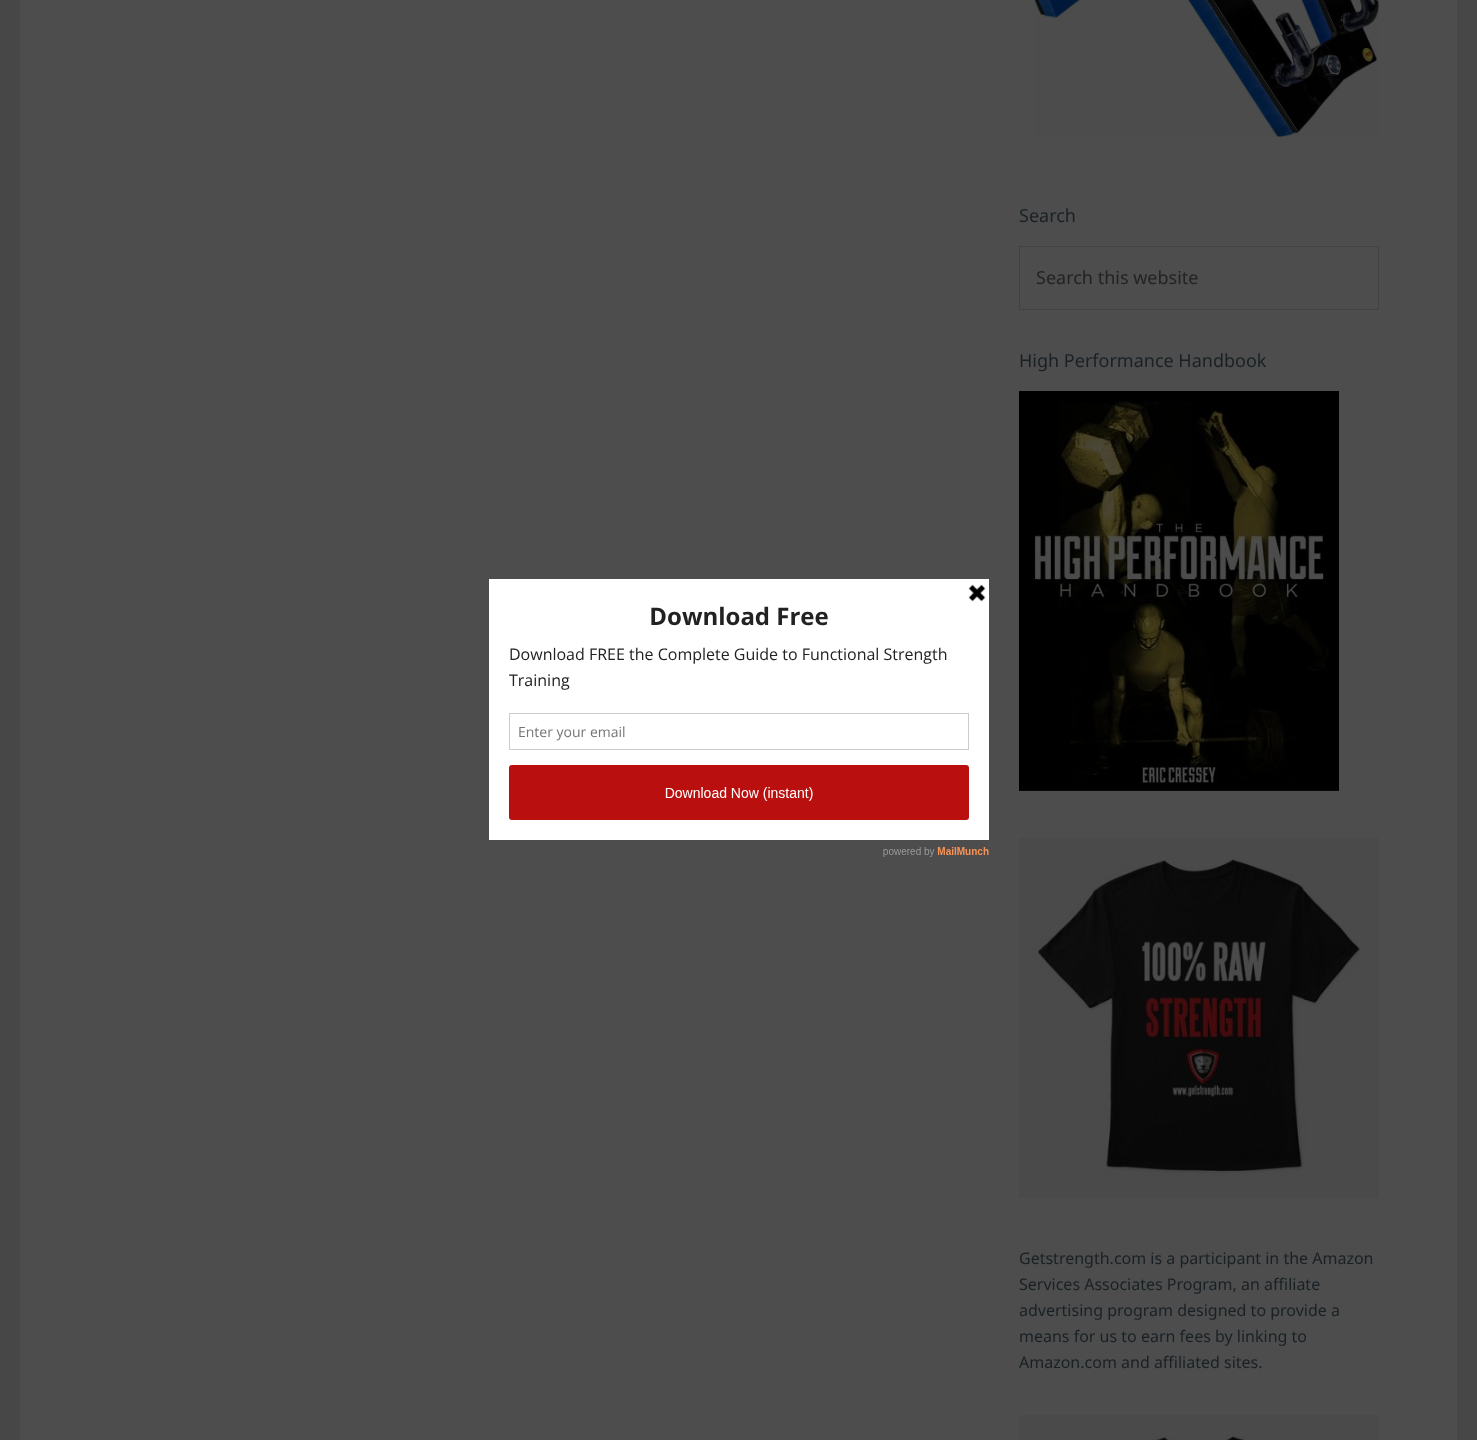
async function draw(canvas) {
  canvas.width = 1477;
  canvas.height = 1440;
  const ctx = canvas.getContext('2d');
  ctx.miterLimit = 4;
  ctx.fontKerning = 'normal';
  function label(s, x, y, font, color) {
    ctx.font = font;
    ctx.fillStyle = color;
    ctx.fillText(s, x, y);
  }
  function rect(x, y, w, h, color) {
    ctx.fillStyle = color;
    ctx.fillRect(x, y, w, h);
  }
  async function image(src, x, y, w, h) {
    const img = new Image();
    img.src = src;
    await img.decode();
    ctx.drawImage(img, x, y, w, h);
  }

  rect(0, 0, 1477, 1440, '#474747');
  rect(20, 0, 1437, 1440, '#4d4d4d');
  await image('assets/img1.png', 489, 579, 500, 278);
  await image('assets/img2.png', 1034, 0, 345, 137);
  label('Search', 1019, 222, '18px Noto Sans', '#192125');
  ctx.strokeStyle = '#424242';
  ctx.strokeRect(1019.5, 246.5, 359, 63);
  label('Search this website', 1036, 284, '18px Noto Sans', '#232323');
  label('High Performance Handbook', 1019, 367, '18px Noto Sans', '#192125');
  await image('assets/img3.png', 1019, 391, 320, 400);
  await image('assets/img4.png', 1019, 838, 360, 360);
  label('Getstrength.com is a participant in the Amazon', 1019, 1264, '16px Noto Sans', '#192125');
  label('Services Associates Program, an affiliate', 1019, 1290, '16px Noto Sans', '#192125');
  label('advertising program designed to provide a', 1019, 1316, '16px Noto Sans', '#192125');
  label('means for us to earn fees by linking to', 1019, 1342, '16px Noto Sans', '#192125');
  label('Amazon.com and affiliated sites.', 1019, 1368, '16px Noto Sans', '#192125');
  await image('assets/img5.png', 1019, 1415, 360, 25);
}

draw(document.querySelector('canvas'));
